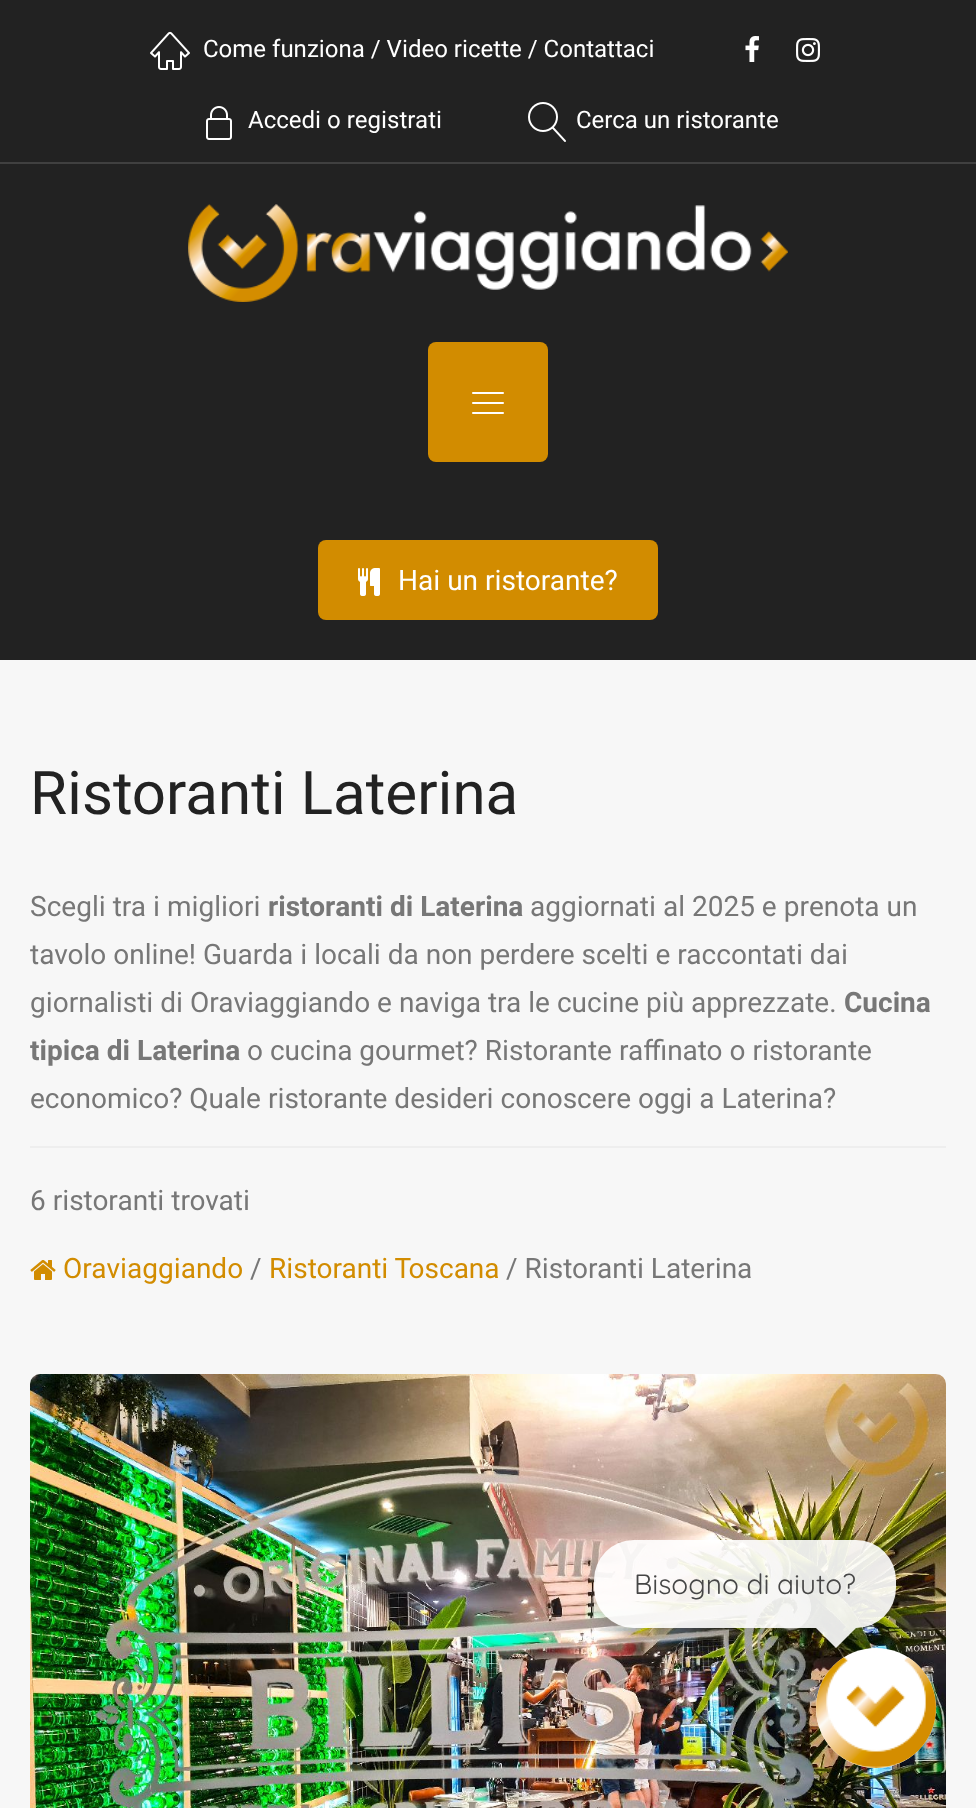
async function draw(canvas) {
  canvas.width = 976;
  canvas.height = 1808;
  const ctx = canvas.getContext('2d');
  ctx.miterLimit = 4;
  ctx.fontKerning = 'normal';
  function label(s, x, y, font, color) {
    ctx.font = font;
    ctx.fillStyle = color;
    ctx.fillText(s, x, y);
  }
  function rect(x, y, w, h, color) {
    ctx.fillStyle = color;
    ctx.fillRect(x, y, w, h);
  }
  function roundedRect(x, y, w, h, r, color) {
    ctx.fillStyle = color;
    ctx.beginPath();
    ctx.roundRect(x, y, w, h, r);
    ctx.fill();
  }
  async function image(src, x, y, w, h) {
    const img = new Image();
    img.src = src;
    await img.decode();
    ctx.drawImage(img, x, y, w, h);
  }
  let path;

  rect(0, 0, 976, 1808, '#f7f7f7');
  rect(0, 0, 976, 660, '#222');
  await image('assets/img1.png', 150, 31, 40, 39);
  label('Come funziona / Video ricette / Contattaci', 203, 57, '24px Heebo', '#fff');
  await image('assets/img2.png', 745, 36, 14, 26);
  await image('assets/img3.png', 796, 38, 24, 24);
  await image('assets/img4.png', 206, 106, 26, 34);
  label('Accedi o registrati', 248, 128, '24px Heebo', '#fff');
  await image('assets/img5.png', 528, 102, 38, 40);
  label('Cerca un ristorante', 576, 128, '24px Heebo', '#fff');
  rect(0, 162, 976, 2, '#404040');
  await image('assets/img6.png', 188, 204, 600, 98);
  roundedRect(428, 342, 120, 120, 8, '#d28c00');
  await image('assets/img7.png', 472, 392, 32, 22);
  roundedRect(318, 540, 340, 80, 8, '#d28c00');
  await image('assets/img8.png', 358, 568, 22, 28);
  label('Hai un ristorante?', 398, 590, '28px Heebo', '#fff');
  label('Ristoranti Laterina', 30, 814, '60px Heebo', '#222');
  label('Scegli tra i migliori', 30, 916, '28px Heebo', '#777');
  label('ristoranti di Laterina', 268, 916, 'bold 28px Heebo', '#777');
  label('aggiornati al 2025 e prenota un', 530, 916, '28px Heebo', '#777');
  label('tavolo online! Guarda i locali da non perdere scelti e raccontati dai', 30, 964, '28px Heebo', '#777');
  label('giornalisti di Oraviaggiando e naviga tra le cucine più apprezzate.', 30, 1012, '28px Heebo', '#777');
  label('Cucina', 844, 1012, 'bold 28px Heebo', '#777');
  label('tipica di Laterina', 30, 1060, 'bold 28px Heebo', '#777');
  label('o cucina gourmet? Ristorante raffinato o ristorante', 247, 1060, '28px Heebo', '#777');
  label('economico? Quale ristorante desideri conoscere oggi a Laterina?', 30, 1108, '28px Heebo', '#777');
  rect(30, 1146, 916, 2, '#eee');
  label('6 ristoranti trovati', 30, 1210, '28px Heebo', '#777');
  await image('assets/img9.png', 30, 1260, 26, 20);
  label('Oraviaggiando', 63, 1278, '28px Heebo', '#d28c00');
  label('/', 250, 1278, '28px Heebo', '#777');
  label('Ristoranti Toscana', 269, 1278, '28px Heebo', '#d28c00');
  label('/ Ristoranti Laterina', 506, 1278, '28px Heebo', '#777');
  ctx.fillStyle = '#fff';
  path = new Path2D('M40 1374H936C942 1374 946 1378 946 1384V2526C946 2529 942 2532 936 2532H40C34 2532 30 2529 30 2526V1384C30 1378 34 1374 40 1374Z');
  ctx.fill(path);
  await image('assets/img10.png', 30, 1374, 916, 434);
  ctx.beginPath();
  ctx.arc(876, 1708, 60, 0, 2 * Math.PI);
  ctx.fill();
  ctx.save();
  path = new Path2D('M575 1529H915V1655H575ZM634 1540H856C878 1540 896 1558 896 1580V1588C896 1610 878 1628 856 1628H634C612 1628 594 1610 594 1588V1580C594 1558 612 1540 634 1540Z');
  ctx.clip(path, 'evenodd');
  ctx.fillStyle = '#00000017';
  ctx.filter = 'blur(6px)';
  ctx.beginPath();
  ctx.roundRect(594, 1548, 302, 88, 40);
  ctx.fill();
  ctx.filter = 'none';
  ctx.restore();
  roundedRect(594, 1540, 302, 88, 40, '#ffffffe6');
  label('Bisogno di aiuto?', 634, 1594, '28px Quicksand', '#464646');
  ctx.fillStyle = '#ffffffe6';
  path = new Path2D('M816 1628H856L836 1648Z');
  ctx.fill(path);
  await image('assets/img11.png', 816, 1657, 120, 111);
}

draw(document.querySelector('canvas'));
